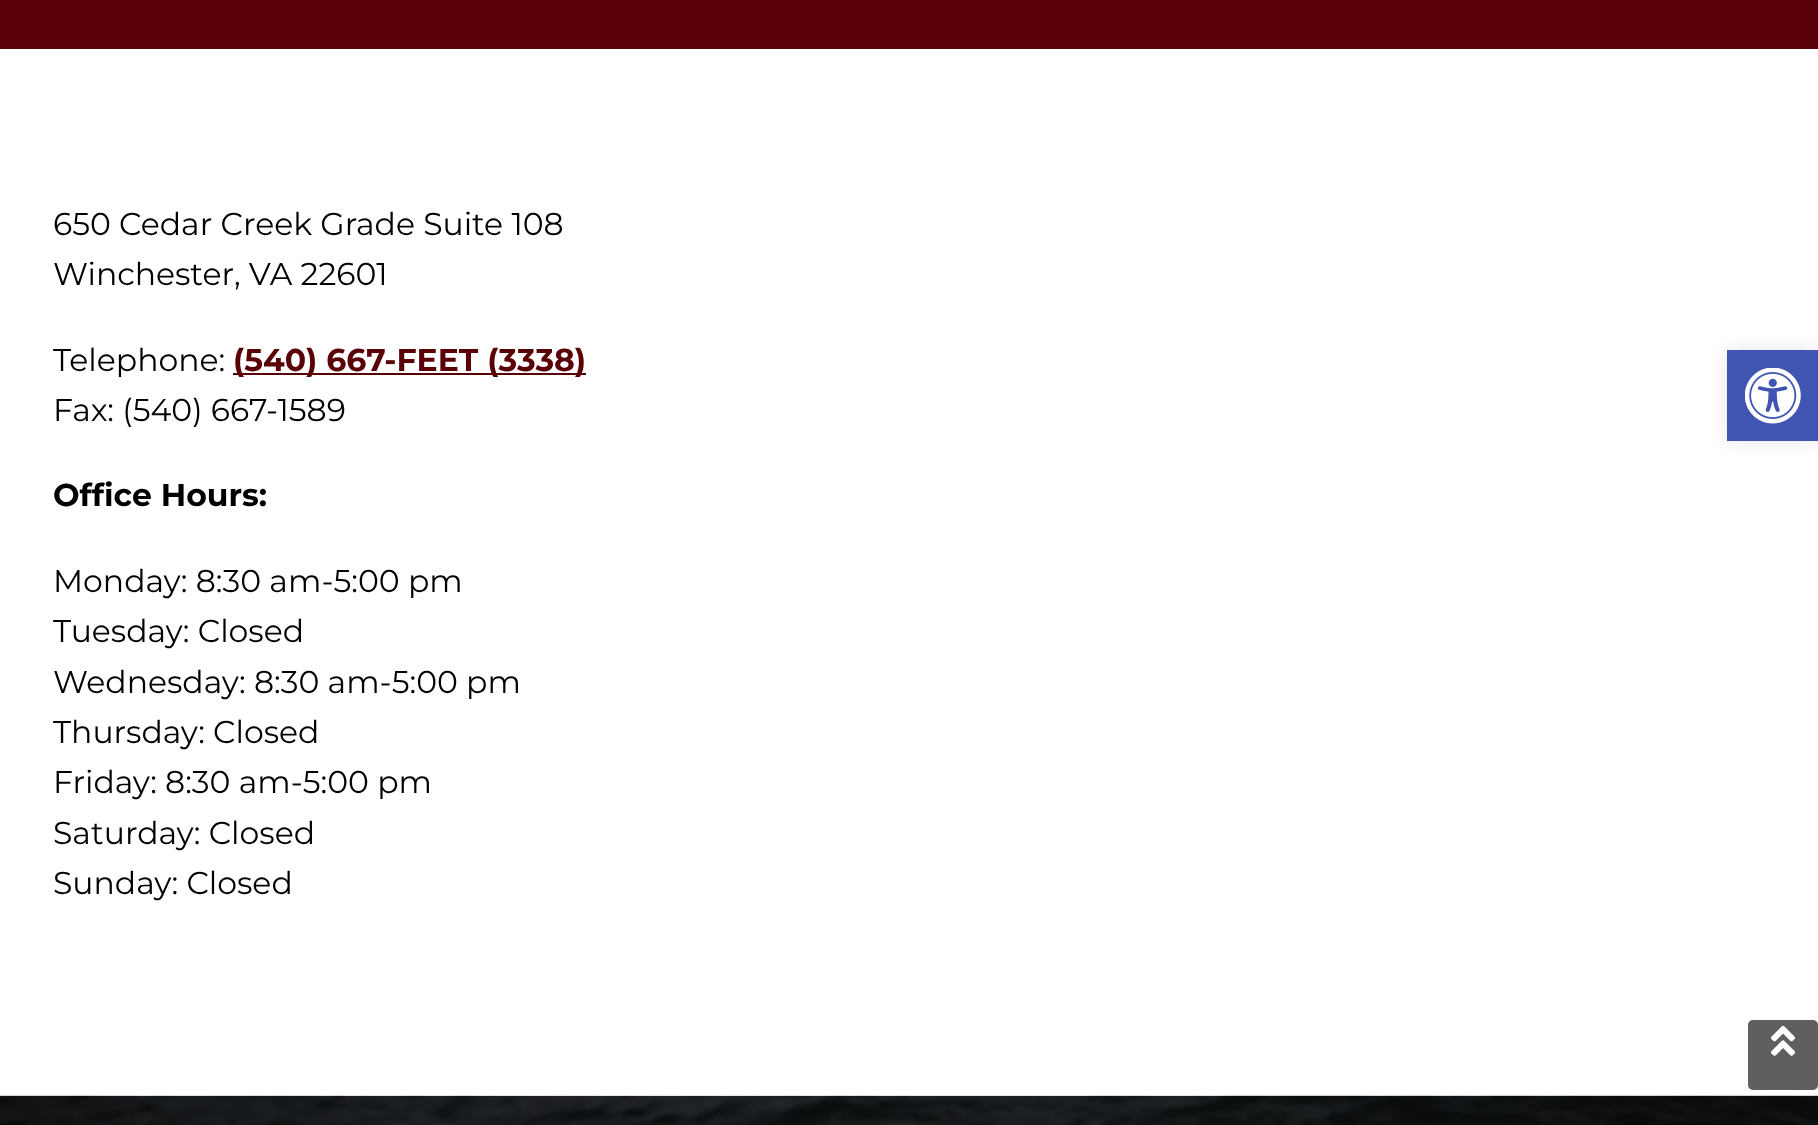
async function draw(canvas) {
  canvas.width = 1818;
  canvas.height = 1125;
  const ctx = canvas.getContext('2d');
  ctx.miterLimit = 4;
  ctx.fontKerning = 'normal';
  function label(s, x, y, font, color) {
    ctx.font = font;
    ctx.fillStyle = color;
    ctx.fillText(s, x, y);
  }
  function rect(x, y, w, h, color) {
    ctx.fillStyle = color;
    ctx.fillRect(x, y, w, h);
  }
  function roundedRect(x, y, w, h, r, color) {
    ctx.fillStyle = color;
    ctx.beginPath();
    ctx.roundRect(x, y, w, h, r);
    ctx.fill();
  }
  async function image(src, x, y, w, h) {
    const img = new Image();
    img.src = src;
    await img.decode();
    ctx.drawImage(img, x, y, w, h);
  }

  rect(0, 0, 1818, 1125, '#fff');
  rect(0, 0, 1818, 49, '#590106');
  label('650 Cedar Creek Grade Suite 108', 53, 235, '31.5px Montserrat', '#000');
  label('Winchester, VA 22601', 53, 285, '31.5px Montserrat', '#000');
  label('Telephone:', 53, 371, '31.5px Montserrat', '#000');
  rect(233, 373, 353, 2, '#590106');
  label('(540) 667-FEET (3338)', 233, 371, 'bold 31.5px Montserrat', '#590106');
  label('Fax: (540) 667-1589', 53, 421, '31.5px Montserrat', '#000');
  label('Office Hours:', 53, 506, 'bold 31.5px Montserrat', '#000');
  label('Monday: 8:30 am-5:00 pm', 53, 592, '31.5px Montserrat', '#000');
  label('Tuesday: Closed', 53, 642, '31.5px Montserrat', '#000');
  label('Wednesday: 8:30 am-5:00 pm', 53, 693, '31.5px Montserrat', '#000');
  label('Thursday: Closed', 53, 743, '31.5px Montserrat', '#000');
  label('Friday: 8:30 am-5:00 pm', 53, 793, '31.5px Montserrat', '#000');
  label('Saturday: Closed', 53, 844, '31.5px Montserrat', '#000');
  label('Sunday: Closed', 53, 894, '31.5px Montserrat', '#000');
  await image('assets/img1.png', 0, 1095, 1818, 30);
  ctx.fillStyle = '#0000001a';
  ctx.filter = 'blur(9px)';
  ctx.beginPath();
  ctx.rect(1727, 350, 91, 91);
  ctx.fill();
  ctx.filter = 'none';
  rect(1727, 350, 91, 91, '#4054b2');
  await image('assets/img2.png', 1745, 368, 56, 56);
  roundedRect(1748, 1020, 70, 70, 5, '#5f5f5f');
  await image('assets/img3.png', 1771, 1025, 24, 31);
}

draw(document.querySelector('canvas'));
